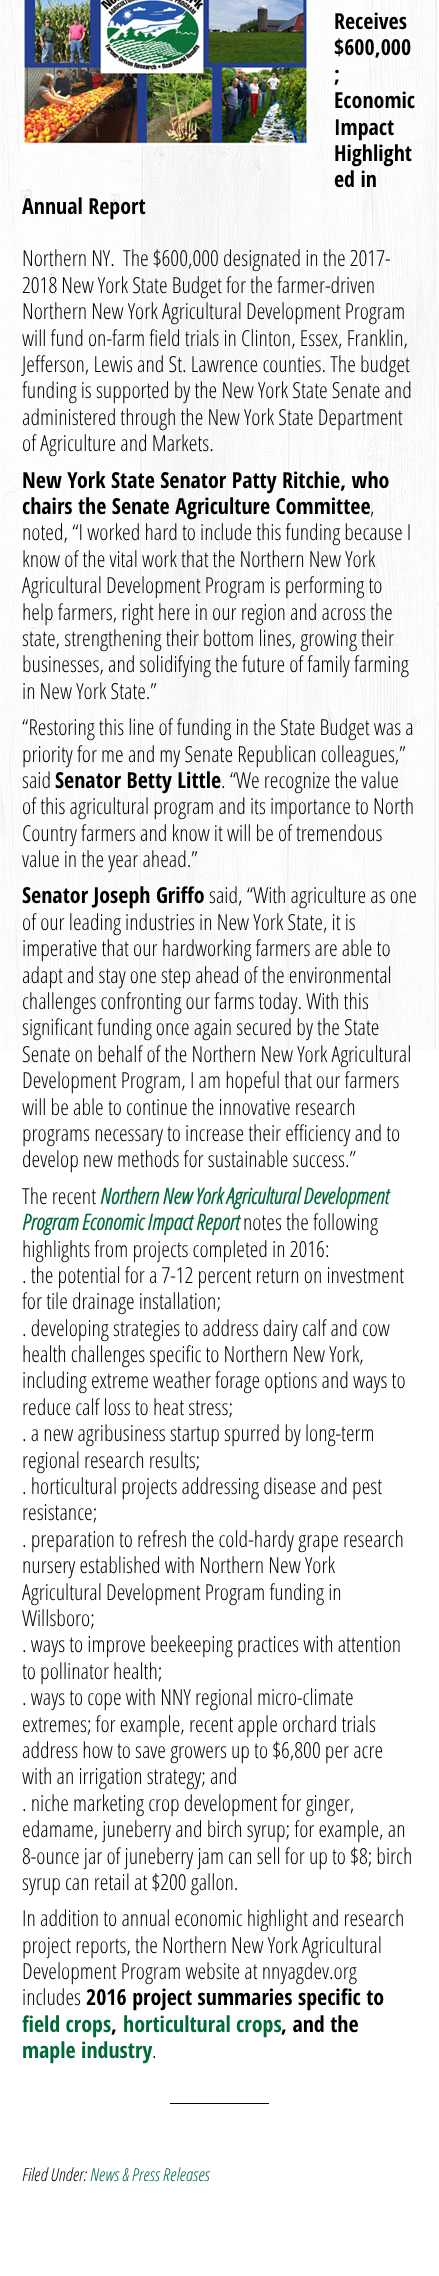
async function draw(canvas) {
  canvas.width = 439;
  canvas.height = 2276;
  const ctx = canvas.getContext('2d');
  ctx.miterLimit = 4;
  ctx.fontKerning = 'normal';
  function label(s, x, y, font, color) {
    ctx.font = font;
    ctx.fillStyle = color;
    ctx.fillText(s, x, y);
  }
  function rect(x, y, w, h, color) {
    ctx.fillStyle = color;
    ctx.fillRect(x, y, w, h);
  }
  async function image(src, x, y, w, h) {
    const img = new Image();
    img.src = src;
    await img.decode();
    ctx.drawImage(img, x, y, w, h);
  }

  rect(0, 0, 439, 2276, '#fff');
  await image('assets/img1.png', 0, 0, 439, 1050);
  await image('assets/img2.png', 22, 0, 288, 145);
  label('Receives', 334, 29, 'bold 22px Open Sans Condensed', '#000');
  label('$600,000', 334, 55, 'bold 22px Open Sans Condensed', '#000');
  label(';', 334, 82, 'bold 22px Open Sans Condensed', '#000');
  label('Economic', 334, 108, 'bold 22px Open Sans Condensed', '#000');
  label('Impact', 334, 135, 'bold 22px Open Sans Condensed', '#000');
  label('Highlight', 334, 161, 'bold 22px Open Sans Condensed', '#000');
  label('ed in', 334, 187, 'bold 22px Open Sans Condensed', '#000');
  label('Annual Report', 22, 214, 'bold 22px Open Sans Condensed', '#000');
  label('Northern NY.  The $600,000 designated in the 2017-', 22, 266, '300 22px Open Sans Condensed', '#000');
  label('2018 New York State Budget for the farmer-driven', 22, 293, '300 22px Open Sans Condensed', '#000');
  label('Northern New York Agricultural Development Program', 22, 319, '300 22px Open Sans Condensed', '#000');
  label('will fund on-farm field trials in Clinton, Essex, Franklin,', 22, 346, '300 22px Open Sans Condensed', '#000');
  label('Jefferson, Lewis and St. Lawrence counties. The budget', 22, 372, '300 22px Open Sans Condensed', '#000');
  label('funding is supported by the New York State Senate and', 22, 398, '300 22px Open Sans Condensed', '#000');
  label('administered through the New York State Department', 22, 425, '300 22px Open Sans Condensed', '#000');
  label('of Agriculture and Markets.', 22, 451, '300 22px Open Sans Condensed', '#000');
  label('New York State Senator Patty Ritchie, who', 22, 488, 'bold 22px Open Sans Condensed', '#000');
  label('chairs the Senate Agriculture Committee', 22, 514, 'bold 22px Open Sans Condensed', '#000');
  label(',', 370, 514, '300 22px Open Sans Condensed', '#000');
  label('noted, “I worked hard to include this funding because I', 22, 540, '300 22px Open Sans Condensed', '#000');
  label('know of the vital work that the Northern New York', 22, 567, '300 22px Open Sans Condensed', '#000');
  label('Agricultural Development Program is performing to', 22, 593, '300 22px Open Sans Condensed', '#000');
  label('help farmers, right here in our region and across the', 22, 620, '300 22px Open Sans Condensed', '#000');
  label('state, strengthening their bottom lines, growing their', 22, 646, '300 22px Open Sans Condensed', '#000');
  label('businesses, and solidifying the future of family farming', 22, 672, '300 22px Open Sans Condensed', '#000');
  label('in New York State.”', 22, 699, '300 22px Open Sans Condensed', '#000');
  label('“Restoring this line of funding in the State Budget was a', 22, 735, '300 22px Open Sans Condensed', '#000');
  label('priority for me and my Senate Republican colleagues,”', 22, 762, '300 22px Open Sans Condensed', '#000');
  label('said', 22, 788, '300 22px Open Sans Condensed', '#000');
  label('Senator Betty Little', 55, 788, 'bold 22px Open Sans Condensed', '#000');
  label('. “We recognize the value', 221, 788, '300 22px Open Sans Condensed', '#000');
  label('of this agricultural program and its importance to North', 22, 814, '300 22px Open Sans Condensed', '#000');
  label('Country farmers and know it will be of tremendous', 22, 841, '300 22px Open Sans Condensed', '#000');
  label('value in the year ahead.”', 22, 867, '300 22px Open Sans Condensed', '#000');
  label('Senator Joseph Griffo', 22, 903, 'bold 22px Open Sans Condensed', '#000');
  label('said, “With agriculture as one', 209, 903, '300 22px Open Sans Condensed', '#000');
  label('of our leading industries in New York State, it is', 22, 930, '300 22px Open Sans Condensed', '#000');
  label('imperative that our hardworking farmers are able to', 22, 956, '300 22px Open Sans Condensed', '#000');
  label('adapt and stay one step ahead of the environmental', 22, 983, '300 22px Open Sans Condensed', '#000');
  label('challenges confronting our farms today. With this', 22, 1009, '300 22px Open Sans Condensed', '#000');
  label('significant funding once again secured by the State', 22, 1035, '300 22px Open Sans Condensed', '#000');
  label('Senate on behalf of the Northern New York Agricultural', 22, 1062, '300 22px Open Sans Condensed', '#000');
  label('Development Program, I am hopeful that our farmers', 22, 1088, '300 22px Open Sans Condensed', '#000');
  label('will be able to continue the innovative research', 22, 1115, '300 22px Open Sans Condensed', '#000');
  label('programs necessary to increase their efficiency and to', 22, 1141, '300 22px Open Sans Condensed', '#000');
  label('develop new methods for sustainable success.”', 22, 1167, '300 22px Open Sans Condensed', '#000');
  label('The recent', 22, 1204, '300 22px Open Sans Condensed', '#000');
  label('Northern New York Agricultural Development', 100, 1204, 'italic bold 22px Open Sans Condensed', '#016938');
  label('Program Economic Impact Report', 22, 1230, 'italic bold 22px Open Sans Condensed', '#016938');
  label('notes the following', 243, 1230, '300 22px Open Sans Condensed', '#000');
  label('highlights from projects completed in 2016:', 22, 1257, '300 22px Open Sans Condensed', '#000');
  label('. the potential for a 7-12 percent return on investment', 22, 1283, '300 22px Open Sans Condensed', '#000');
  label('for tile drainage installation;', 22, 1309, '300 22px Open Sans Condensed', '#000');
  label('. developing strategies to address dairy calf and cow', 22, 1336, '300 22px Open Sans Condensed', '#000');
  label('health challenges specific to Northern New York,', 22, 1362, '300 22px Open Sans Condensed', '#000');
  label('including extreme weather forage options and ways to', 22, 1388, '300 22px Open Sans Condensed', '#000');
  label('reduce calf loss to heat stress;', 22, 1415, '300 22px Open Sans Condensed', '#000');
  label('. a new agribusiness startup spurred by long-term', 22, 1441, '300 22px Open Sans Condensed', '#000');
  label('regional research results;', 22, 1468, '300 22px Open Sans Condensed', '#000');
  label('. horticultural projects addressing disease and pest', 22, 1494, '300 22px Open Sans Condensed', '#000');
  label('resistance;', 22, 1520, '300 22px Open Sans Condensed', '#000');
  label('. preparation to refresh the cold-hardy grape research', 22, 1547, '300 22px Open Sans Condensed', '#000');
  label('nursery established with Northern New York', 22, 1573, '300 22px Open Sans Condensed', '#000');
  label('Agricultural Development Program funding in', 22, 1600, '300 22px Open Sans Condensed', '#000');
  label('Willsboro;', 22, 1626, '300 22px Open Sans Condensed', '#000');
  label('. ways to improve beekeeping practices with attention', 22, 1652, '300 22px Open Sans Condensed', '#000');
  label('to pollinator health;', 22, 1679, '300 22px Open Sans Condensed', '#000');
  label('. ways to cope with NNY regional micro-climate', 22, 1705, '300 22px Open Sans Condensed', '#000');
  label('extremes; for example, recent apple orchard trials', 22, 1732, '300 22px Open Sans Condensed', '#000');
  label('address how to save growers up to $6,800 per acre', 22, 1758, '300 22px Open Sans Condensed', '#000');
  label('with an irrigation strategy; and', 22, 1784, '300 22px Open Sans Condensed', '#000');
  label('. niche marketing crop development for ginger,', 22, 1811, '300 22px Open Sans Condensed', '#000');
  label('edamame, juneberry and birch syrup; for example, an', 22, 1837, '300 22px Open Sans Condensed', '#000');
  label('8-ounce jar of juneberry jam can sell for up to $8; birch', 22, 1864, '300 22px Open Sans Condensed', '#000');
  label('syrup can retail at $200 gallon.', 22, 1890, '300 22px Open Sans Condensed', '#000');
  label('In addition to annual economic highlight and research', 22, 1926, '300 22px Open Sans Condensed', '#000');
  label('project reports, the Northern New York Agricultural', 22, 1953, '300 22px Open Sans Condensed', '#000');
  label('Development Program website at nnyagdev.org', 22, 1979, '300 22px Open Sans Condensed', '#000');
  label('includes', 22, 2005, '300 22px Open Sans Condensed', '#000');
  label('2016 project summaries specific to', 86, 2005, 'bold 22px Open Sans Condensed', '#000');
  label('field crops', 22, 2032, 'bold 22px Open Sans Condensed', '#016938');
  label(',', 111, 2032, 'bold 22px Open Sans Condensed', '#000');
  label('horticultural crops', 123, 2032, 'bold 22px Open Sans Condensed', '#016938');
  label(', and the', 281, 2032, 'bold 22px Open Sans Condensed', '#000');
  label('maple industry', 22, 2058, 'bold 22px Open Sans Condensed', '#016938');
  label('.', 152, 2058, '300 22px Open Sans Condensed', '#000');
  rect(170, 2103, 99, 1, '#000');
  label('Filed Under:', 22, 2181, 'italic 300 18px Open Sans Condensed', '#000');
  label('News & Press Releases', 90, 2181, 'italic 300 18px Open Sans Condensed', '#016938');
}

draw(document.querySelector('canvas'));
